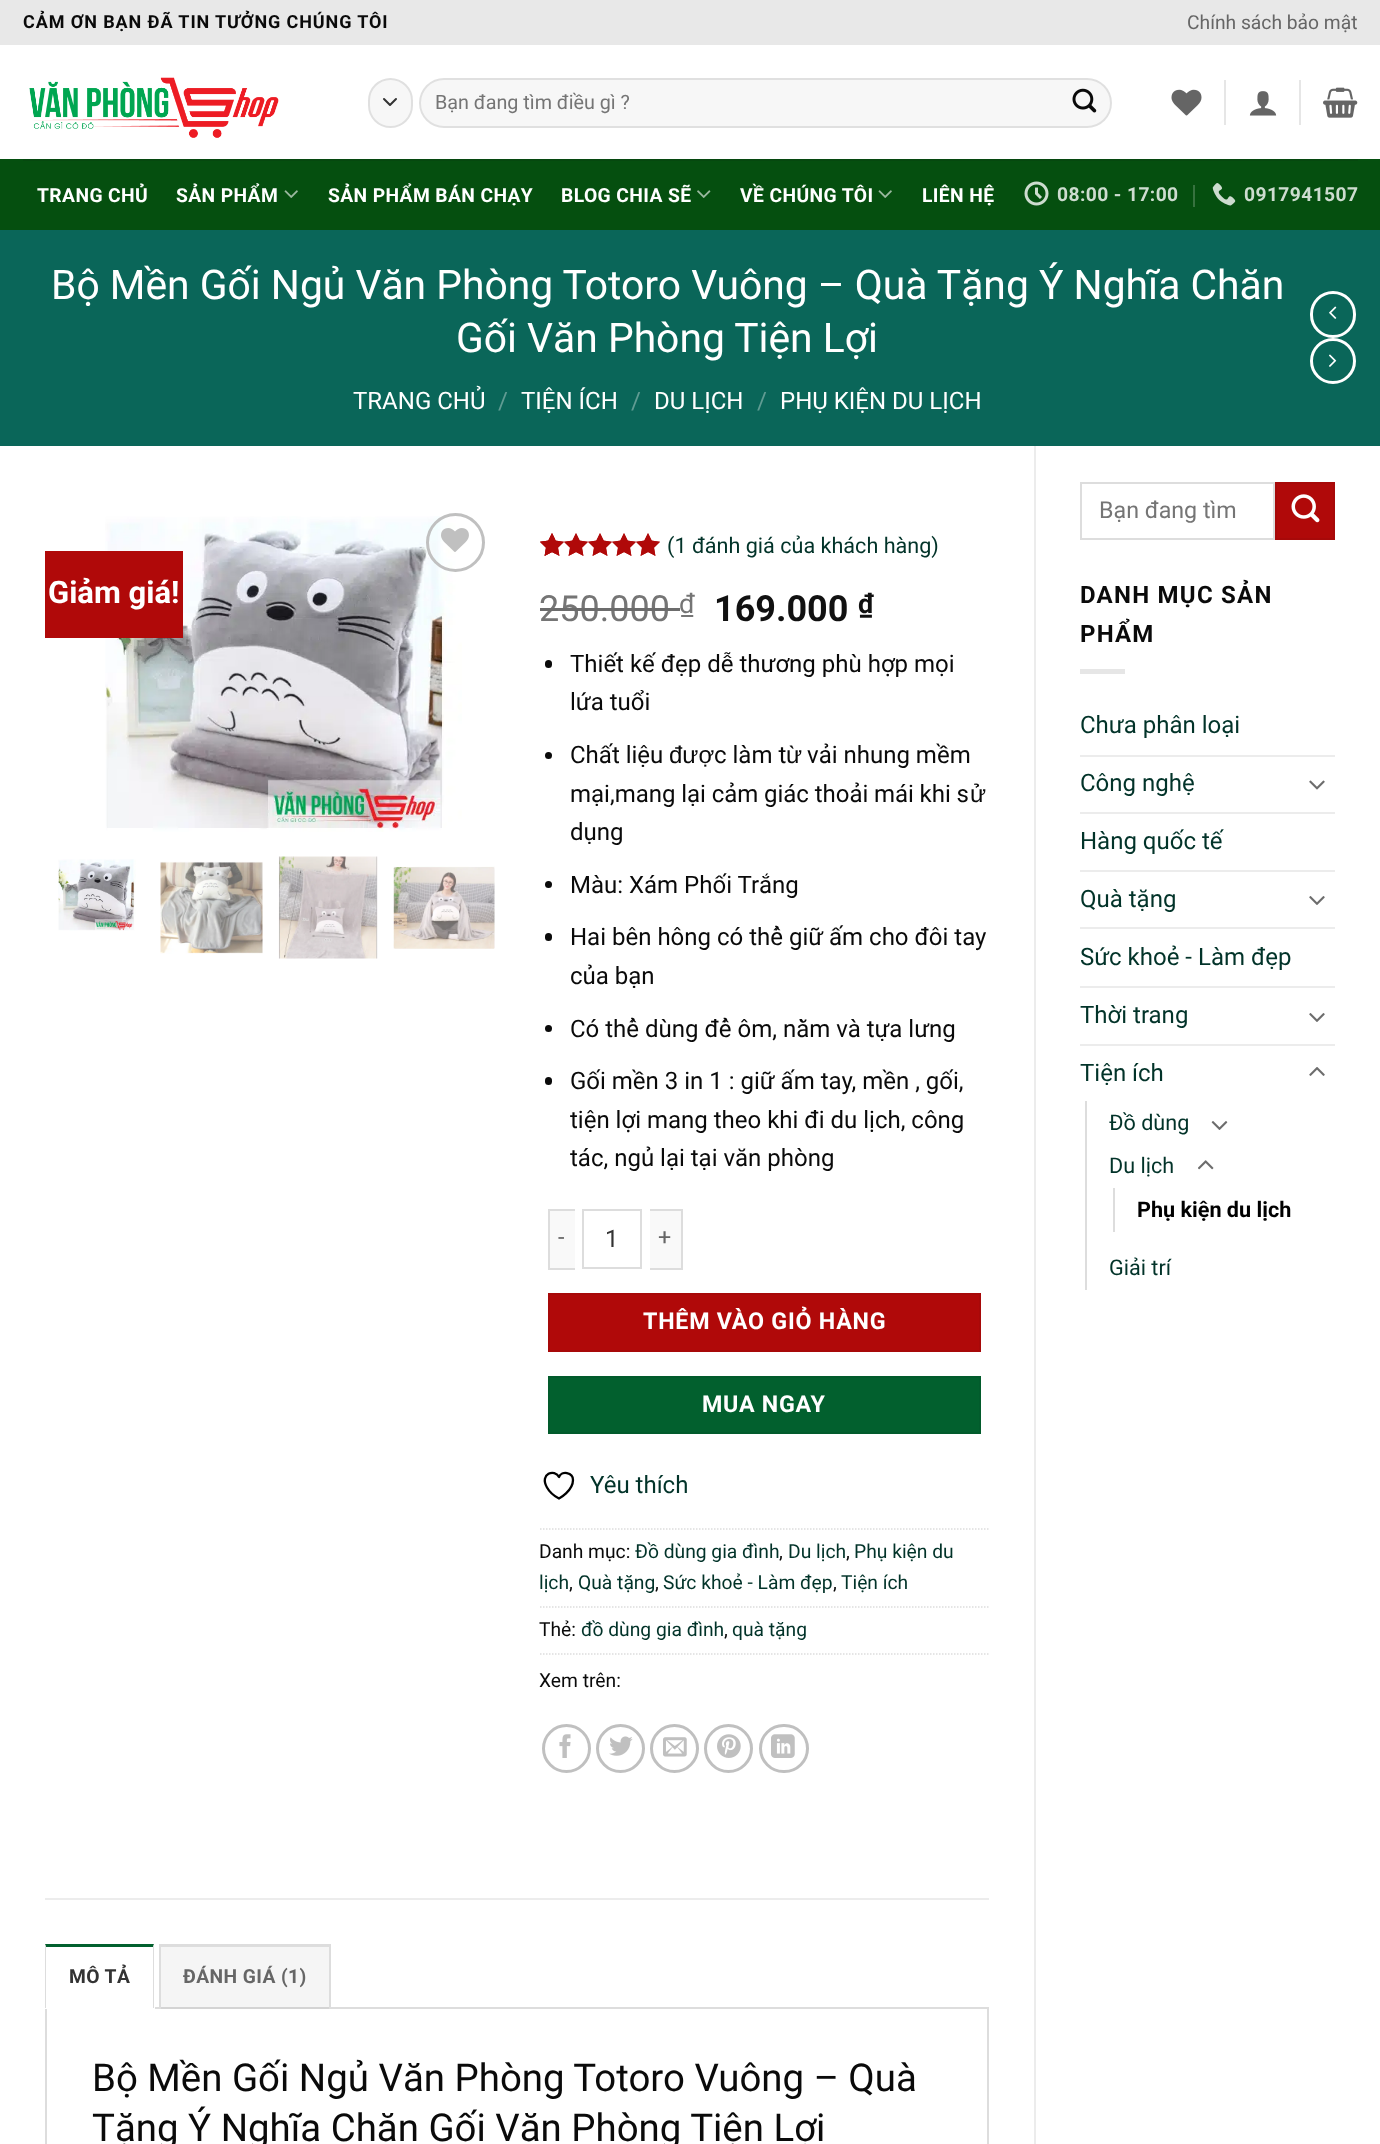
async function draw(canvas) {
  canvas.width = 1380;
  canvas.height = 2144;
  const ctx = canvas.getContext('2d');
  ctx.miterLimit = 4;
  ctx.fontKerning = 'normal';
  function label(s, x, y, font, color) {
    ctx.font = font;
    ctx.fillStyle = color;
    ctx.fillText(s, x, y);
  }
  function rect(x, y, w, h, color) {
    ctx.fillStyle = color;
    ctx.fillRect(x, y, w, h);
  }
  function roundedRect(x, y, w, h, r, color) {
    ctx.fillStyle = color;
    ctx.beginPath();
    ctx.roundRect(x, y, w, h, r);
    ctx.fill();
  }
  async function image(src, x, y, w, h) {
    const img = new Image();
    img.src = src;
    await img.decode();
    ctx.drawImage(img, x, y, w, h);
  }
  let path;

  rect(0, 0, 1380, 2144, '#fff');
  rect(0, 0, 1380, 45, '#e8e8e8');
  ctx.letterSpacing = '0.9px';
  label('CẢM ƠN BẠN ĐÃ TIN TƯỞNG CHÚNG TÔI', 23, 28, 'bold 18px Roboto', '#0a0a0a');
  ctx.letterSpacing = '0px';
  label('Chính sách bảo mật', 1187, 29, '19.25px Roboto', '#666');
  await image('assets/img1.png', 29, 77, 250, 61);
  roundedRect(368, 78, 45, 50, 22.5, '#f7f7f7');
  path = new Path2D('M384 99L390 105L396 99');
  ctx.strokeStyle = '#333';
  ctx.lineWidth = 2;
  ctx.lineCap = 'round';
  ctx.lineJoin = 'round';
  ctx.stroke(path);
  ctx.beginPath();
  ctx.roundRect(369, 79, 43, 48, 21.5);
  ctx.strokeStyle = '#00000017';
  ctx.lineJoin = 'miter';
  ctx.stroke();
  roundedRect(419, 78, 693, 50, 25, '#f7f7f7');
  ctx.beginPath();
  ctx.roundRect(420, 79, 691, 48, 24);
  ctx.stroke();
  label('Bạn đang tìm điều gì ?', 435, 109, '19.75px Roboto', '#757575');
  await image('assets/img2.png', 1072, 88, 25, 25);
  await image('assets/img3.png', 1171, 89, 31, 27);
  rect(1224, 80, 2, 45, '#e6e6e6');
  await image('assets/img4.png', 1249, 91, 28, 25);
  rect(1299, 80, 2, 45, '#e6e6e6');
  await image('assets/img5.png', 1323, 87, 35, 31);
  rect(0, 159, 1380, 71, '#054f0f');
  rect(23, 159, 1335, 2, '#06480f');
  ctx.letterSpacing = '0.4px';
  label('TRANG CHỦ', 37, 202, 'bold 19.25px Roboto', '#fff');
  label('SẢN PHẨM', 176, 202, 'bold 19.25px Roboto', '#fff');
  await image('assets/img6.png', 284, 190, 14, 8);
  label('SẢN PHẨM BÁN CHẠY', 328, 202, 'bold 19.25px Roboto', '#fff');
  label('BLOG CHIA SẼ', 561, 202, 'bold 19.25px Roboto', '#fff');
  await image('assets/img7.png', 697, 190, 14, 8);
  label('VỀ CHÚNG TÔI', 740, 202, 'bold 19.25px Roboto', '#fff');
  await image('assets/img6.png', 878, 190, 14, 8);
  label('LIÊN HỆ', 922, 202, 'bold 19.25px Roboto', '#fff');
  await image('assets/img8.png', 1024, 181, 25, 25);
  label('08:00 - 17:00', 1057, 201, 'bold 19.25px Roboto', '#cddccf');
  rect(1193, 185, 2, 22, '#37723f');
  await image('assets/img9.png', 1212, 183, 24, 23);
  label('0917941507', 1244, 201, 'bold 19.25px Roboto', '#cddccf');
  rect(0, 230, 1380, 216, '#0a6659');
  ctx.letterSpacing = '0px';
  label('Bộ Mền Gối Ngủ Văn Phòng Totoro Vuông – Quà Tặng Ý Nghĩa Chăn', 51, 299, '40.8px Roboto', '#fff');
  label('Gối Văn Phòng Tiện Lợi', 456, 352, '40.8px Roboto', '#fff');
  label('TRANG CHỦ', 353, 409, '24px Roboto', '#fff');
  label('/', 498, 409, '24px Roboto', '#609c93');
  label('TIỆN ÍCH', 521, 409, '24px Roboto', '#fff');
  label('/', 631, 409, '24px Roboto', '#609c93');
  label('DU LỊCH', 654, 409, '24px Roboto', '#fff');
  label('/', 757, 409, '24px Roboto', '#609c93');
  label('PHỤ KIỆN DU LỊCH', 780, 409, '24px Roboto', '#fff');
  ctx.beginPath();
  ctx.roundRect(1311.5, 292.5, 43, 44, 21.5);
  ctx.strokeStyle = '#fff';
  ctx.lineWidth = 3;
  ctx.stroke();
  await image('assets/img10.png', 1329, 306, 8, 13);
  ctx.beginPath();
  ctx.arc(1333, 361, 21.5, 0, 2 * Math.PI);
  ctx.stroke();
  await image('assets/img11.png', 1329, 354, 8, 13);
  rect(1034, 446, 2, 1698, '#ececec');
  await image('assets/img13.png', 105, 516, 357, 316);
  ctx.beginPath();
  ctx.arc(455.5, 542.5, 28, 0, 2 * Math.PI);
  ctx.strokeStyle = '#c0c0c0';
  ctx.stroke();
  await image('assets/img12.png', 441, 528, 28, 24);
  await image('assets/img14.png', 58, 859, 78, 72);
  await image('assets/img15.png', 160, 861, 103, 93);
  await image('assets/img16.png', 278, 856, 100, 103);
  await image('assets/img17.png', 393, 866, 102, 83);
  rect(45, 551, 138, 87, '#b00909');
  label('Giảm giá!', 48, 603, 'bold 31px Roboto', '#fff');
  await image('assets/img18.png', 540, 533, 120, 23);
  await image('assets/img19.png', 540, 533, 120, 23);
  await image('assets/img20.png', 540, 533, 15, 23);
  label('(1 đánh giá của khách hàng)', 667, 553, '21.6px Roboto', '#023329');
  label('250.000', 539, 621, '36px Roboto', '#757575');
  rect(540, 608, 140, 3, '#6c6c6c');
  label('₫', 679, 613, '27px Roboto', '#757575');
  label('169.000', 714, 621, 'bold 36px Roboto', '#111');
  label('₫', 858, 613, 'bold 27px Roboto', '#111');
  roundedRect(545, 660, 7, 8, 3.5, '#0a0a0a');
  label('Thiết kế đẹp dễ thương phù hợp mọi', 570, 672, '24px Roboto', '#0a0a0a');
  label('lứa tuổi', 570, 710, '24px Roboto', '#0a0a0a');
  ctx.beginPath();
  ctx.arc(548.5, 755.5, 3.5, 0, 2 * Math.PI);
  ctx.fill();
  label('Chất liệu', 570, 763, '24px Roboto', '#0a0a0a');
  label('đượ', 669, 763, '24px Liberation Sans', '#0a0a0a');
  label('c làm t', 714, 763, '24px Roboto', '#0a0a0a');
  label('ừ', 786, 763, '24px Liberation Sans', '#0a0a0a');
  label('vải nhung mềm', 807, 763, '24px Roboto', '#0a0a0a');
  ctx.wordSpacing = '-0.25px';
  label('mại,mang lại cảm giác thoải mái khi s', 570, 802, '24px Roboto', '#0a0a0a');
  ctx.wordSpacing = '0px';
  label('ử', 970, 802, '24px Liberation Sans', '#0a0a0a');
  label('dụng', 570, 840, '24px Roboto', '#0a0a0a');
  ctx.beginPath();
  ctx.arc(548.5, 884.5, 3.5, 0, 2 * Math.PI);
  ctx.fill();
  label('Màu: Xám Phối Trắng', 570, 893, '24px Roboto', '#0a0a0a');
  roundedRect(545, 933, 7, 8, 3.5, '#0a0a0a');
  label('Hai bên hông có thể giữ ấm cho đôi tay', 570, 945, '24px Roboto', '#0a0a0a');
  label('của bạn', 570, 984, '24px Roboto', '#0a0a0a');
  ctx.beginPath();
  ctx.arc(548.5, 1028.5, 3.5, 0, 2 * Math.PI);
  ctx.fill();
  label('Có thể dùng để ôm, nằm và tựa lưng', 570, 1037, '24px Roboto', '#0a0a0a');
  roundedRect(545, 1077, 7, 8, 3.5, '#0a0a0a');
  label('Gối mền 3 in 1 : giữ ấm tay, mền , gối,', 570, 1089, '24px Roboto', '#0a0a0a');
  label('tiện lợi mang theo khi đi du lịch, công', 570, 1128, '24px Roboto', '#0a0a0a');
  label('tác, ngủ lại tại văn phòng', 570, 1166, '24px Roboto', '#0a0a0a');
  rect(550, 1211, 25, 57, '#f9f9f9');
  rect(548, 1209, 27, 2, '#ddd');
  rect(548, 1268, 27, 2, '#ddd');
  rect(548, 1209, 2, 60, '#ddd');
  ctx.letterSpacing = '0.75px';
  label('-', 558, 1245, '23.25px Roboto', '#666');
  ctx.strokeStyle = '#ddd';
  ctx.lineWidth = 2;
  ctx.strokeRect(583, 1210, 58, 58);
  ctx.letterSpacing = '0px';
  label('1', 605, 1247, '24px Roboto', '#333');
  rect(650, 1211, 31, 57, '#f9f9f9');
  rect(650, 1209, 33, 2, '#ddd');
  rect(681, 1209, 2, 60, '#ddd');
  rect(650, 1268, 33, 2, '#ddd');
  ctx.letterSpacing = '0.75px';
  label('+', 658, 1245, '23.25px Roboto', '#666');
  ctx.fillStyle = '#b00909';
  ctx.beginPath();
  ctx.rect(549, 1294, 431, 57);
  ctx.fill();
  ctx.strokeStyle = '#a70909';
  ctx.stroke();
  label('THÊM VÀO GIỎ HÀNG', 643, 1329, 'bold 23.25px Roboto', '#fff');
  ctx.fillStyle = '#02602e';
  ctx.beginPath();
  ctx.rect(549, 1377, 431, 56);
  ctx.fill();
  ctx.strokeStyle = '#025b2c';
  ctx.stroke();
  label('MUA NGAY', 702, 1412, 'bold 23.25px Roboto', '#fff');
  ctx.letterSpacing = '0px';
  label('Yêu thích', 590, 1493, '24px Roboto', '#023329');
  path = new Path2D('M573 1480C573 1472 561.5 1470.5 559 1477C555 1468.5 539 1473.5 547 1487.5C549.5 1492 554 1496 559 1498.5C559 1498.5 573 1491 573 1480Z');
  ctx.strokeStyle = '#000';
  ctx.lineWidth = 2.3;
  ctx.lineJoin = 'round';
  ctx.stroke(path);
  path = new Path2D('M540 1529H988.5');
  ctx.strokeStyle = '#ddd';
  ctx.lineWidth = 1.5;
  ctx.lineCap = 'butt';
  ctx.lineJoin = 'miter';
  ctx.setLineDash([1.5, 1.5]);
  ctx.stroke(path);
  label('Danh mục:', 539, 1558, '19.25px Roboto', '#0a0a0a');
  label('Đồ dùng gia đình', 635, 1558, '19.25px Roboto', '#023329');
  label(',', 779, 1558, '19.25px Roboto', '#0a0a0a');
  label('Du lịch', 788, 1558, '19.25px Roboto', '#023329');
  label(',', 846, 1558, '19.25px Roboto', '#0a0a0a');
  label('Phụ kiện du', 854, 1558, '19.25px Roboto', '#023329');
  label('lịch', 539, 1589, '19.25px Roboto', '#023329');
  label(',', 569, 1589, '19.25px Roboto', '#0a0a0a');
  label('Quà tặng', 578, 1589, '19.25px Roboto', '#023329');
  label(',', 655, 1589, '19.25px Roboto', '#0a0a0a');
  label('Sức khoẻ - Làm đẹp', 663, 1589, '19.25px Roboto', '#023329');
  label(',', 833, 1589, '19.25px Roboto', '#0a0a0a');
  label('Tiện ích', 841, 1589, '19.25px Roboto', '#023329');
  path = new Path2D('M540 1607H988.5');
  ctx.stroke(path);
  label('Thẻ:', 539, 1636, '19.25px Roboto', '#0a0a0a');
  label('đồ dùng gia đình', 581, 1636, '19.25px Roboto', '#023329');
  label(',', 724, 1636, '19.25px Roboto', '#0a0a0a');
  label('quà tặng', 732, 1636, '19.25px Roboto', '#023329');
  path = new Path2D('M540 1654H988.5');
  ctx.stroke(path);
  label('Xem trên:', 539, 1687, '19.25px Roboto', '#0a0a0a');
  ctx.beginPath();
  ctx.arc(566.5, 1748.5, 23, 0, 2 * Math.PI);
  ctx.strokeStyle = '#c0c0c0';
  ctx.lineWidth = 3;
  ctx.setLineDash([]);
  ctx.stroke();
  await image('assets/img21.png', 559, 1734, 12, 24);
  ctx.beginPath();
  ctx.arc(620.5, 1748.5, 23, 0, 2 * Math.PI);
  ctx.stroke();
  await image('assets/img22.png', 609, 1736, 24, 20);
  ctx.beginPath();
  ctx.arc(674.5, 1748.5, 23, 0, 2 * Math.PI);
  ctx.stroke();
  await image('assets/img23.png', 663, 1737, 24, 20);
  ctx.beginPath();
  ctx.arc(728.5, 1748.5, 23, 0, 2 * Math.PI);
  ctx.stroke();
  await image('assets/img24.png', 717, 1734, 24, 24);
  ctx.beginPath();
  ctx.roundRect(760.5, 1725.5, 47, 46, 23);
  ctx.stroke();
  await image('assets/img25.png', 771, 1734, 24, 24);
  rect(45, 1898, 944, 2, '#ececec');
  ctx.strokeStyle = '#ddd';
  ctx.lineWidth = 2;
  ctx.strokeRect(46, 2008, 942, 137);
  rect(45, 2007, 110, 2, '#fff');
  ctx.fillStyle = '#02602e';
  path = new Path2D('M45 1944H154L153 1947H46Z');
  ctx.fill(path);
  ctx.fillStyle = '#ddd';
  path = new Path2D('M154 1944V2008H153V1947Z');
  ctx.fill(path);
  path = new Path2D('M45 2008V1944L46 1947V2008Z');
  ctx.fill(path);
  ctx.letterSpacing = '0.4px';
  label('MÔ TẢ', 69, 1983, 'bold 19.25px Roboto', '#333');
  rect(161, 1947, 168, 62, '#0000000a');
  rect(159, 1944, 171, 3, '#ddd');
  rect(329, 1944, 2, 65, '#ddd');
  rect(159, 1944, 2, 65, '#ddd');
  label('ĐÁNH GIÁ (1)', 183, 1983, 'bold 19.25px Roboto', '#666');
  ctx.letterSpacing = '0px';
  label('Bộ Mền Gối Ngủ Văn Phòng Totoro Vuông – Quà', 92, 2091, '38.4px Roboto', '#0a0a0a');
  label('Tặng Ý Nghĩa Chăn Gối Văn Phòng Tiện Lợi', 92, 2141, '38.4px Roboto', '#0a0a0a');
  ctx.strokeRect(1081, 483, 193, 56);
  label('Bạn đang tìm', 1099, 518, '23.25px Roboto', '#757575');
  ctx.fillStyle = '#b00909';
  ctx.beginPath();
  ctx.rect(1276, 483, 58, 56);
  ctx.fill();
  ctx.strokeStyle = '#a70909';
  ctx.stroke();
  await image('assets/img26.png', 1291, 494, 29, 29);
  ctx.letterSpacing = '1.25px';
  label('DANH MỤC SẢN', 1080, 603, 'bold 24px Roboto', '#0a0a0a');
  label('PHẨM', 1080, 642, 'bold 24px Roboto', '#0a0a0a');
  rect(1080, 669, 45, 5, '#e6e6e6');
  ctx.letterSpacing = '0px';
  label('Chưa phân loại', 1080, 733, '24px Roboto', '#023329');
  rect(1080, 755, 255, 2, '#ececec');
  label('Công nghệ', 1080, 791, '24px Roboto', '#023329');
  await image('assets/img27.png', 1309, 780, 16, 10);
  rect(1080, 812, 255, 2, '#ececec');
  label('Hàng quốc tế', 1080, 849, '24px Roboto', '#023329');
  rect(1080, 870, 255, 2, '#ececec');
  label('Quà tặng', 1080, 907, '24px Roboto', '#023329');
  await image('assets/img28.png', 1309, 896, 16, 9);
  rect(1080, 927, 255, 2, '#ececec');
  label('Sức khoẻ - Làm đẹp', 1080, 965, '24px Roboto', '#023329');
  rect(1080, 986, 255, 2, '#ececec');
  label('Thời trang', 1080, 1023, '24px Roboto', '#023329');
  await image('assets/img28.png', 1309, 1013, 16, 9);
  rect(1080, 1044, 255, 2, '#ececec');
  label('Tiện ích', 1080, 1081, '24px Roboto', '#023329');
  await image('assets/img29.png', 1309, 1067, 16, 9);
  rect(1085, 1101, 2, 189, '#ddd');
  label('Đồ dùng', 1109, 1130, '21.6px Roboto', '#023329');
  await image('assets/img30.png', 1211, 1121, 17, 9);
  label('Du lịch', 1109, 1173, '21.6px Roboto', '#023329');
  await image('assets/img31.png', 1198, 1160, 16, 10);
  rect(1113, 1188, 2, 44, '#ddd');
  label('Phụ kiện du lịch', 1137, 1217, 'bold 21.6px Roboto', '#000');
  label('Giải trí', 1109, 1275, '21.6px Roboto', '#023329');
}

draw(document.querySelector('canvas'));
